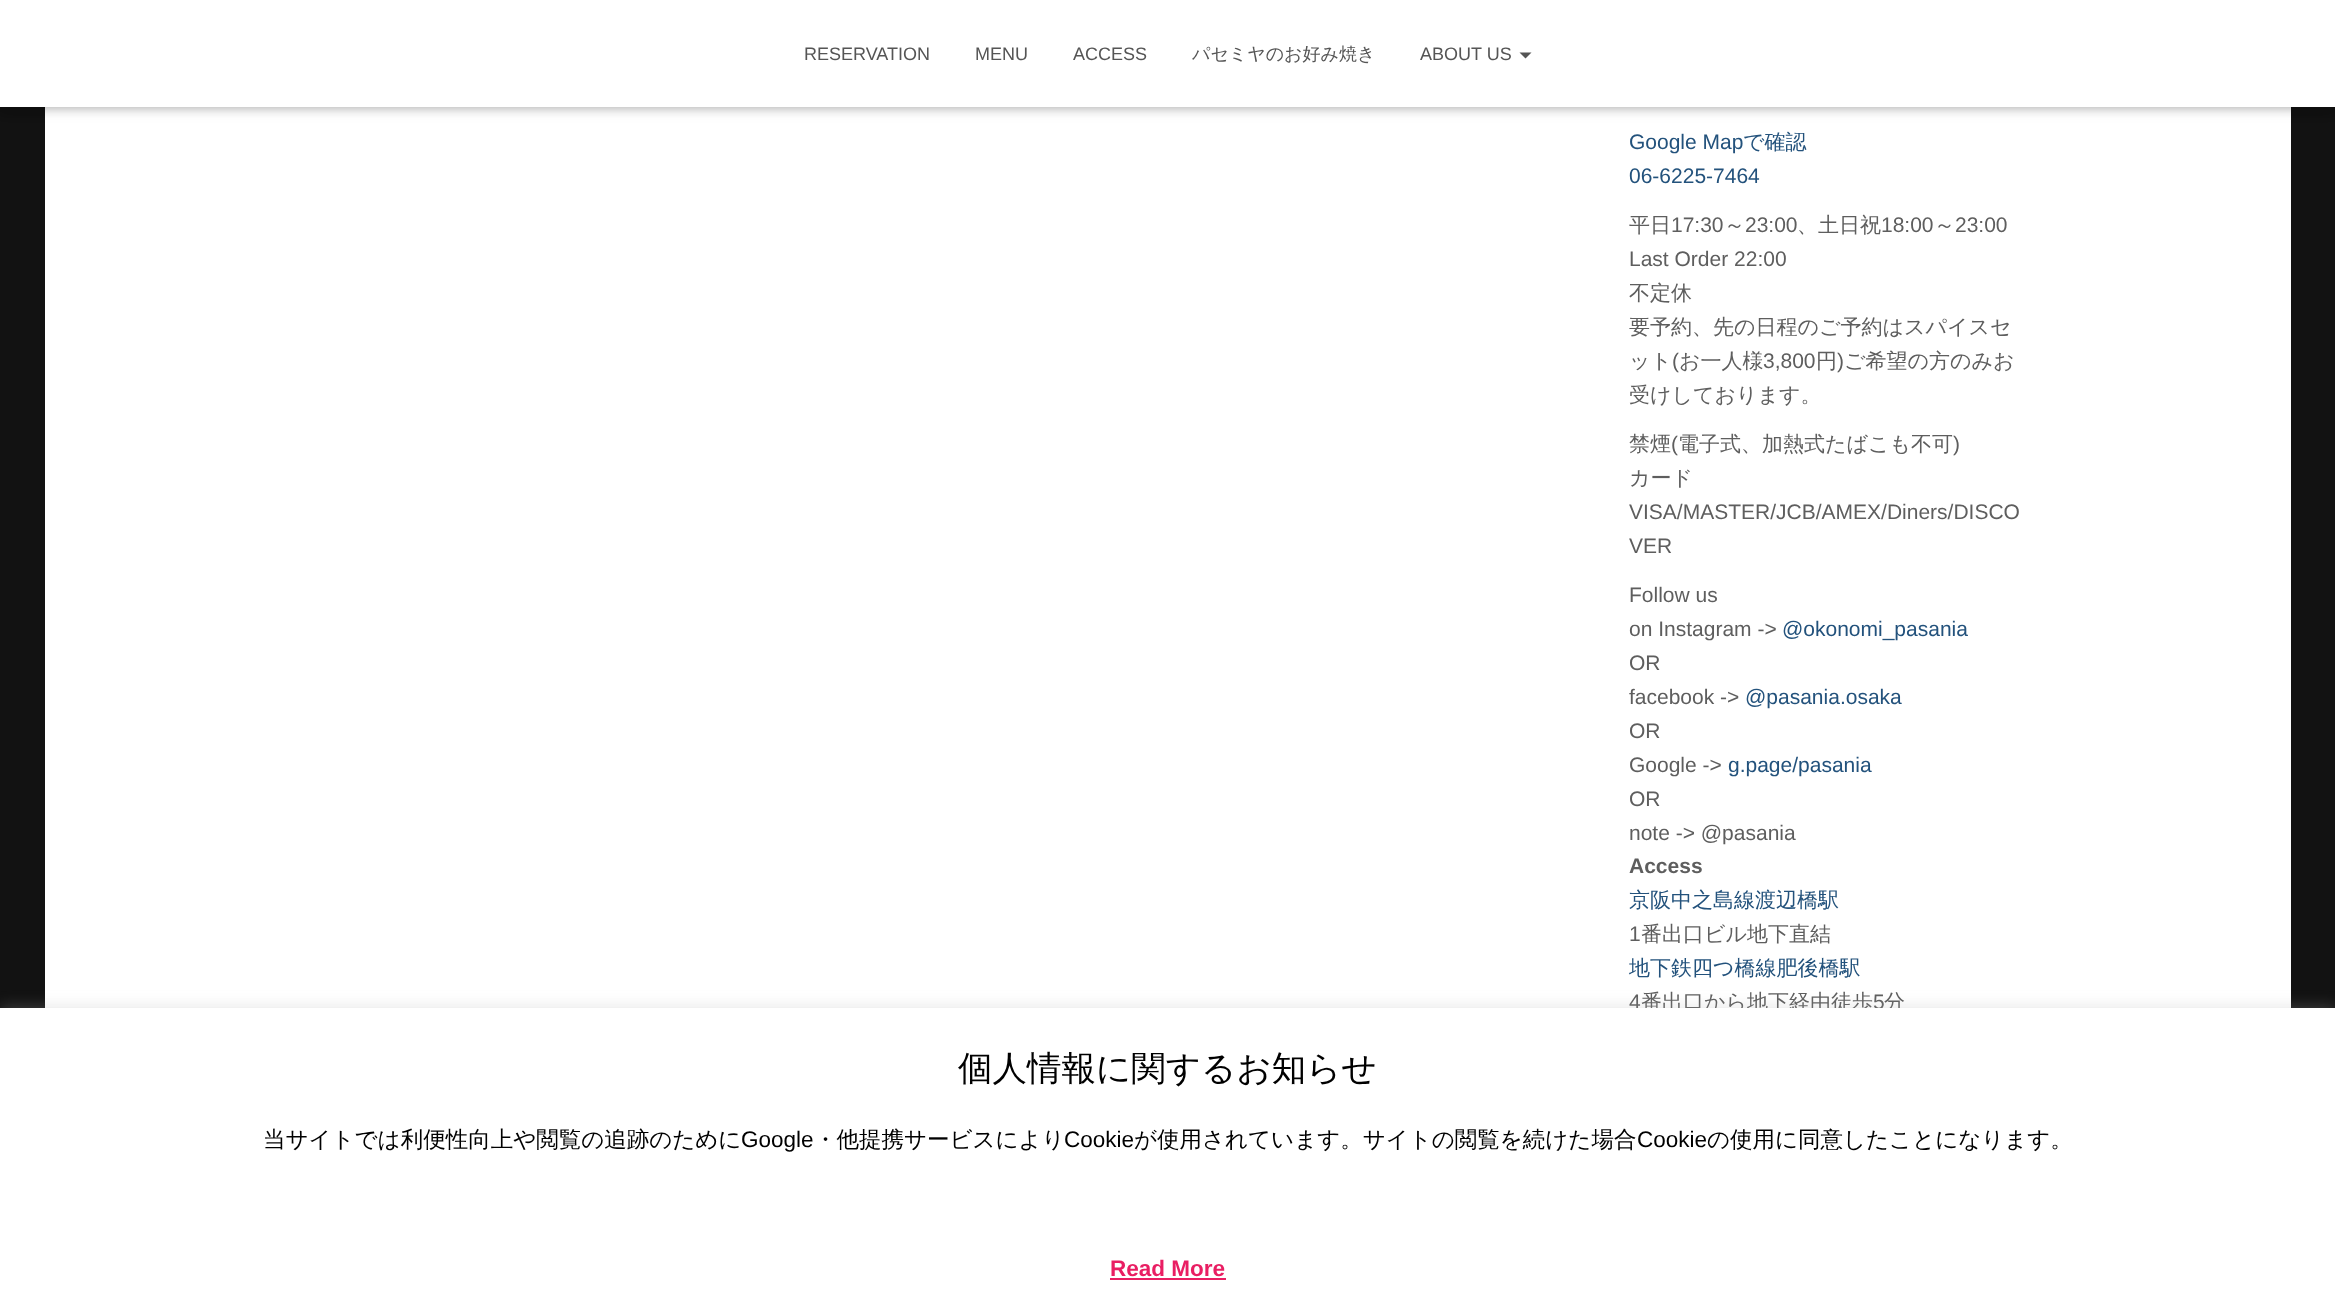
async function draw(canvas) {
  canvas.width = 2335;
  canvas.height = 1305;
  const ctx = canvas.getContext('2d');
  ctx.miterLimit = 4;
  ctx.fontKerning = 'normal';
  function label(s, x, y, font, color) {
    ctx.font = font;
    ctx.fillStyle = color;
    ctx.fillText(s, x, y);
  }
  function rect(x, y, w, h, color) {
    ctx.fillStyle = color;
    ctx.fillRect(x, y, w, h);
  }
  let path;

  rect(0, 0, 2335, 1305, '#121212');
  rect(45, 107, 2246, 901, '#fff');
  ctx.fillStyle = '#0000001a';
  ctx.filter = 'blur(4px)';
  ctx.beginPath();
  ctx.rect(3, 9, 2330, 101);
  ctx.fill();
  ctx.filter = 'none';
  ctx.fillStyle = '#0000001f';
  ctx.filter = 'blur(7.5px)';
  ctx.beginPath();
  ctx.rect(0, 2, 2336, 106);
  ctx.fill();
  ctx.filter = 'none';
  ctx.fillStyle = '#0000006b';
  ctx.filter = 'blur(7.5px)';
  ctx.beginPath();
  ctx.rect(9, 11, 2318, 88);
  ctx.fill();
  ctx.filter = 'none';
  rect(0, 0, 2335, 107, '#fff');
  label('RESERVATION', 804, 60, '18px Liberation Sans', '#555');
  label('MENU', 975, 60, '18px Liberation Sans', '#555');
  label('ACCESS', 1073, 60, '18px Liberation Sans', '#555');
  label('パセミヤのお好み焼き', 1192, 60, '500 18px WenQuanYi Zen Hei', '#555');
  label('ABOUT US', 1420, 60, '18px Liberation Sans', '#555');
  path = new Path2D('M1519.5 52.5H1531.5L1525.5 58.5Z');
  ctx.fill(path);
  label('Google Map', 1629, 149, '21px Liberation Sans', '#23527c');
  label('で確認', 1743, 149, '500 21px WenQuanYi Zen Hei', '#23527c');
  label('06-6225-7464', 1629, 183, '21px Liberation Sans', '#23527c');
  label('平日', 1629, 232, '500 21px WenQuanYi Zen Hei', '#5e5e5e');
  label('17:30', 1671, 232, '21px Liberation Sans', '#5e5e5e');
  label('～', 1724, 232, '500 21px WenQuanYi Zen Hei', '#5e5e5e');
  label('23:00', 1745, 232, '21px Liberation Sans', '#5e5e5e');
  label('、土日祝', 1797, 232, '500 21px WenQuanYi Zen Hei', '#5e5e5e');
  label('18:00', 1881, 232, '21px Liberation Sans', '#5e5e5e');
  label('～', 1934, 232, '500 21px WenQuanYi Zen Hei', '#5e5e5e');
  label('23:00', 1955, 232, '21px Liberation Sans', '#5e5e5e');
  label('Last Order 22:00', 1629, 266, '21px Liberation Sans', '#5e5e5e');
  label('不定休', 1629, 300, '500 21px WenQuanYi Zen Hei', '#5e5e5e');
  label('要予約、先の日程のご予約はスパイスセ', 1629, 334, '500 21px WenQuanYi Zen Hei', '#5e5e5e');
  label('ット', 1629, 368, '500 21px WenQuanYi Zen Hei', '#5e5e5e');
  label('(', 1672, 368, '21px Liberation Sans', '#5e5e5e');
  label('お一人様', 1679, 368, '500 21px WenQuanYi Zen Hei', '#5e5e5e');
  label('3,800', 1763, 368, '21px Liberation Sans', '#5e5e5e');
  label('円', 1816, 368, '500 21px WenQuanYi Zen Hei', '#5e5e5e');
  label(')', 1837, 368, '21px Liberation Sans', '#5e5e5e');
  label('ご希望の方のみお', 1844, 368, '500 21px WenQuanYi Zen Hei', '#5e5e5e');
  label('受けしております。', 1629, 402, '500 21px WenQuanYi Zen Hei', '#5e5e5e');
  label('禁煙', 1629, 451, '500 21px WenQuanYi Zen Hei', '#5e5e5e');
  label('(', 1671, 451, '21px Liberation Sans', '#5e5e5e');
  label('電子式、加熱式たばこも不可', 1678, 451, '500 21px WenQuanYi Zen Hei', '#5e5e5e');
  label(')', 1953, 451, '21px Liberation Sans', '#5e5e5e');
  label('カード', 1629, 485, '500 21px WenQuanYi Zen Hei', '#5e5e5e');
  label('VISA/MASTER/JCB/AMEX/Diners/DISCO', 1629, 519, '21px Liberation Sans', '#5e5e5e');
  label('VER', 1629, 553, '21px Liberation Sans', '#5e5e5e');
  label('Follow us', 1629, 602, '21px Liberation Sans', '#5e5e5e');
  label('on Instagram ->', 1629, 636, '21px Liberation Sans', '#5e5e5e');
  label('@okonomi_pasania', 1782, 636, '21px Liberation Sans', '#23527c');
  label('OR', 1629, 670, '21px Liberation Sans', '#5e5e5e');
  label('facebook ->', 1629, 704, '21px Liberation Sans', '#5e5e5e');
  label('@pasania.osaka', 1745, 704, '21px Liberation Sans', '#23527c');
  label('OR', 1629, 738, '21px Liberation Sans', '#5e5e5e');
  label('Google ->', 1629, 772, '21px Liberation Sans', '#5e5e5e');
  label('g.page/pasania', 1728, 772, '21px Liberation Sans', '#23527c');
  label('OR', 1629, 806, '21px Liberation Sans', '#5e5e5e');
  label('note -> @pasania', 1629, 840, '21px Liberation Sans', '#5e5e5e');
  label('Access', 1629, 873, 'bold 21px Liberation Sans', '#5e5e5e');
  label('京阪中之島線渡辺橋駅', 1629, 907, '500 21px WenQuanYi Zen Hei', '#23527c');
  label('1', 1629, 941, '21px Liberation Sans', '#5e5e5e');
  label('番出口ビル地下直結', 1641, 941, '500 21px WenQuanYi Zen Hei', '#5e5e5e');
  label('地下鉄四つ橋線肥後橋駅', 1629, 975, '500 21px WenQuanYi Zen Hei', '#23527c');
  label('4', 1629, 1009, '21px Liberation Sans', '#5e5e5e');
  label('番出口から地下経由徒歩', 1641, 1009, '500 21px WenQuanYi Zen Hei', '#5e5e5e');
  label('5', 1873, 1009, '21px Liberation Sans', '#5e5e5e');
  label('分', 1884, 1009, '500 21px WenQuanYi Zen Hei', '#5e5e5e');
  ctx.fillStyle = '#acabab4d';
  ctx.filter = 'blur(7.5px)';
  ctx.beginPath();
  ctx.rect(0, 1007, 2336, 297);
  ctx.fill();
  ctx.filter = 'none';
  rect(0, 1008, 2335, 297, '#fff');
  label('個人情報に関するお知らせ', 958, 1080, '500 34.5px WenQuanYi Zen Hei', '#000');
  label('当サイトでは利便性向上や閲覧の追跡のために', 263, 1147, '500 22.5px WenQuanYi Zen Hei', '#000');
  label('Google', 741, 1147, '22.5px Liberation Sans', '#000');
  label('・他提携サービスにより', 814, 1147, '500 22.5px WenQuanYi Zen Hei', '#000');
  label('Cookie', 1064, 1147, '22.5px Liberation Sans', '#000');
  label('が使用されています。サイトの閲覧を続けた場合', 1134, 1147, '500 22.5px WenQuanYi Zen Hei', '#000');
  label('Cookie', 1637, 1147, '22.5px Liberation Sans', '#000');
  label('の使用に同意したことになります。', 1707, 1147, '500 22.5px WenQuanYi Zen Hei', '#000');
  label('Read More', 1110, 1276, 'bold 22.5px Liberation Sans', '#e91e63');
  rect(1110, 1278, 116, 2, '#e91e63');
}

draw(document.querySelector('canvas'));
